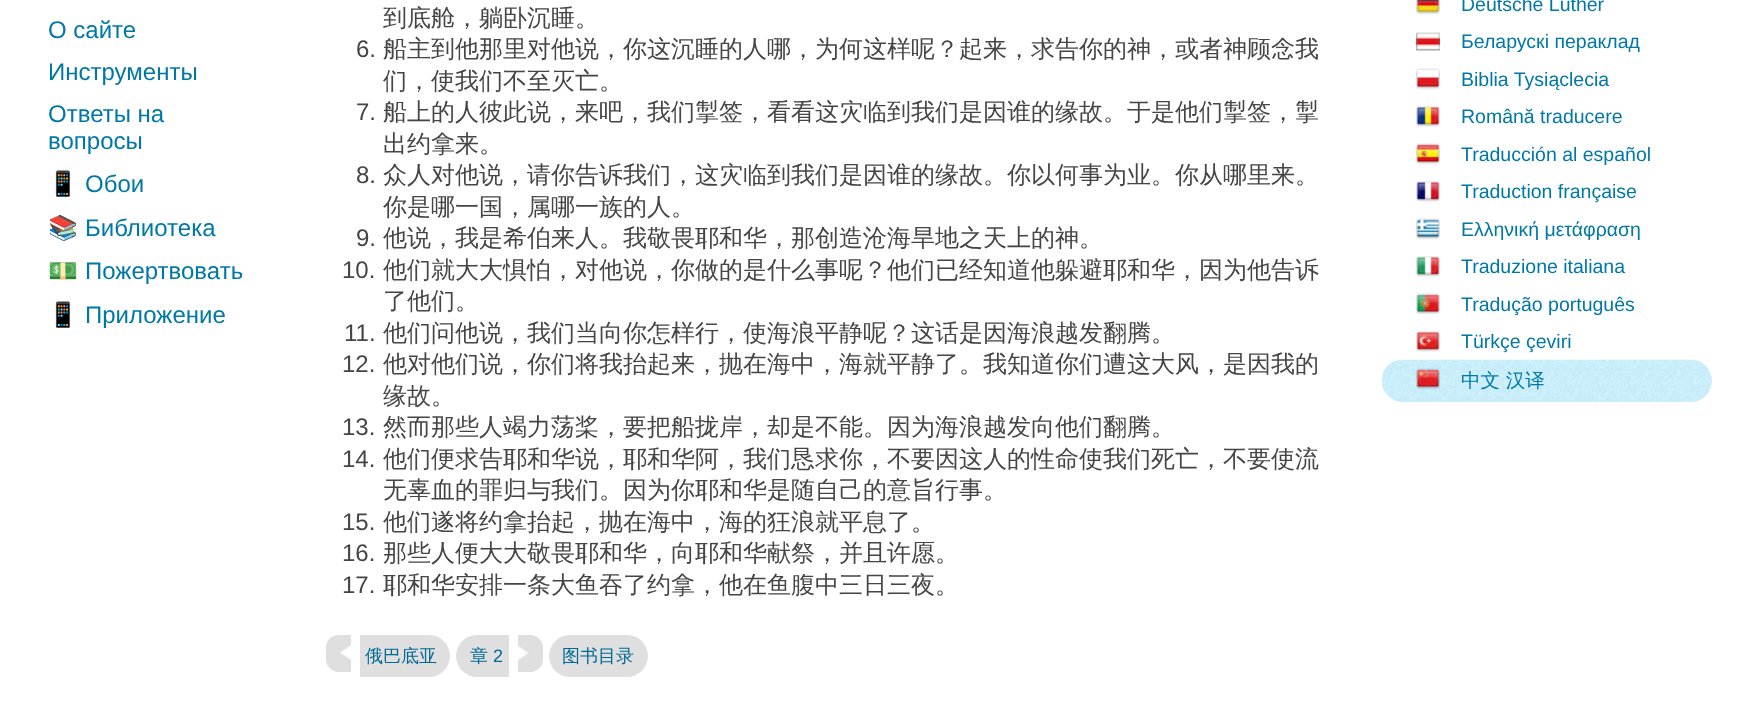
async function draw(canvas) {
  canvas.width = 1737;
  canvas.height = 708;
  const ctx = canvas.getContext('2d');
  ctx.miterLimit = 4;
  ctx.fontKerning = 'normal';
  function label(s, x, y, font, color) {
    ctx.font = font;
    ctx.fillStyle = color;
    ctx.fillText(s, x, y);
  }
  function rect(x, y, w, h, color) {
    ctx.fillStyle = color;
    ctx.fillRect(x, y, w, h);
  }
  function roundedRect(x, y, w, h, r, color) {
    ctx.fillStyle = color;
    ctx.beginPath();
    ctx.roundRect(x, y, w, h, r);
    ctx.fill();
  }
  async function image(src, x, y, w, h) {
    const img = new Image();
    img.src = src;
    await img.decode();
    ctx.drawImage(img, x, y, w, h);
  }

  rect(0, 0, 1737, 708, '#fff');
  label('О сайте', 48, 38, '24px Liberation Sans', '#0078a6');
  label('Инструменты', 48, 80, '24px Liberation Sans', '#0078a6');
  label('Ответы на', 48, 122, '24px Liberation Sans', '#0078a6');
  label('вопросы', 48, 149, '24px Liberation Sans', '#0078a6');
  label('📱', 48, 192, '24px Noto Color Emoji', '#0078a6');
  label('Обои', 85, 192, '24px Liberation Sans', '#0078a6');
  label('📚', 48, 236, '24px Noto Color Emoji', '#0078a6');
  label('Библиотека', 85, 236, '24px Liberation Sans', '#0078a6');
  label('💵', 48, 279, '24px Noto Color Emoji', '#0078a6');
  label('Пожертвовать', 85, 279, '24px Liberation Sans', '#0078a6');
  label('📱', 48, 323, '24px Noto Color Emoji', '#0078a6');
  label('Приложение', 85, 323, '24px Liberation Sans', '#0078a6');
  label('到底舱，躺卧沉睡。', 383, 26, '500 24px WenQuanYi Zen Hei', '#454545');
  label('6.', 356, 57, '24px Liberation Sans', '#454545');
  label('船主到他那里对他说，你这沉睡的人哪，为何这样呢？起来，求告你的神，或者神顾念我', 383, 57, '500 24px WenQuanYi Zen Hei', '#454545');
  label('们，使我们不至灭亡。', 383, 89, '500 24px WenQuanYi Zen Hei', '#454545');
  label('7.', 356, 120, '24px Liberation Sans', '#454545');
  label('船上的人彼此说，来吧，我们掣签，看看这灾临到我们是因谁的缘故。于是他们掣签，掣', 383, 120, '500 24px WenQuanYi Zen Hei', '#454545');
  label('出约拿来。', 383, 152, '500 24px WenQuanYi Zen Hei', '#454545');
  label('8.', 356, 183, '24px Liberation Sans', '#454545');
  label('众人对他说，请你告诉我们，这灾临到我们是因谁的缘故。你以何事为业。你从哪里来。', 383, 183, '500 24px WenQuanYi Zen Hei', '#454545');
  label('你是哪一国，属哪一族的人。', 383, 215, '500 24px WenQuanYi Zen Hei', '#454545');
  label('9.', 356, 246, '24px Liberation Sans', '#454545');
  label('他说，我是希伯来人。我敬畏耶和华，那创造沧海旱地之天上的神。', 383, 246, '500 24px WenQuanYi Zen Hei', '#454545');
  label('10.', 342, 278, '24px Liberation Sans', '#454545');
  label('他们就大大惧怕，对他说，你做的是什么事呢？他们已经知道他躲避耶和华，因为他告诉', 383, 278, '500 24px WenQuanYi Zen Hei', '#454545');
  label('了他们。', 383, 309, '500 24px WenQuanYi Zen Hei', '#454545');
  label('11.', 344, 341, '24px Liberation Sans', '#454545');
  label('他们问他说，我们当向你怎样行，使海浪平静呢？这话是因海浪越发翻腾。', 383, 341, '500 24px WenQuanYi Zen Hei', '#454545');
  label('12.', 342, 372, '24px Liberation Sans', '#454545');
  label('他对他们说，你们将我抬起来，抛在海中，海就平静了。我知道你们遭这大风，是因我的', 383, 372, '500 24px WenQuanYi Zen Hei', '#454545');
  label('缘故。', 383, 404, '500 24px WenQuanYi Zen Hei', '#454545');
  label('13.', 342, 435, '24px Liberation Sans', '#454545');
  label('然而那些人竭力荡桨，要把船拢岸，却是不能。因为海浪越发向他们翻腾。', 383, 435, '500 24px WenQuanYi Zen Hei', '#454545');
  label('14.', 342, 467, '24px Liberation Sans', '#454545');
  label('他们便求告耶和华说，耶和华阿，我们恳求你，不要因这人的性命使我们死亡，不要使流', 383, 467, '500 24px WenQuanYi Zen Hei', '#454545');
  label('无辜血的罪归与我们。因为你耶和华是随自己的意旨行事。', 383, 498, '500 24px WenQuanYi Zen Hei', '#454545');
  label('15.', 342, 530, '24px Liberation Sans', '#454545');
  label('他们遂将约拿抬起，抛在海中，海的狂浪就平息了。', 383, 530, '500 24px WenQuanYi Zen Hei', '#454545');
  label('16.', 342, 561, '24px Liberation Sans', '#454545');
  label('那些人便大大敬畏耶和华，向耶和华献祭，并且许愿。', 383, 561, '500 24px WenQuanYi Zen Hei', '#454545');
  label('17.', 342, 593, '24px Liberation Sans', '#454545');
  label('耶和华安排一条大鱼吞了约拿，他在鱼腹中三日三夜。', 383, 593, '500 24px WenQuanYi Zen Hei', '#454545');
  ctx.fillStyle = '#dfdfdf';
  ctx.beginPath();
  ctx.roundRect(326, 635, 25, 37, [12.5, 0, 0, 12.5]);
  ctx.fill();
  await image('assets/img1.png', 340, 645, 11, 15);
  ctx.beginPath();
  ctx.roundRect(360, 635, 90, 42, [0, 21, 21, 0]);
  ctx.fill();
  label('俄巴底亚', 365, 662, '500 18px WenQuanYi Zen Hei', '#006a93');
  ctx.fillStyle = '#dfdfdf';
  ctx.beginPath();
  ctx.roundRect(456, 635, 53, 42, [21, 0, 0, 21]);
  ctx.fill();
  label('章', 470, 662, '500 18px WenQuanYi Zen Hei', '#006a93');
  label('2', 493, 662, '18px Liberation Sans', '#006a93');
  ctx.fillStyle = '#dfdfdf';
  ctx.beginPath();
  ctx.roundRect(518, 635, 25, 37, [0, 12.5, 12.5, 0]);
  ctx.fill();
  await image('assets/img2.png', 518, 646, 11, 15);
  roundedRect(549, 635, 99, 42, 21, '#dfdfdf');
  label('图书目录', 562, 662, '500 18px WenQuanYi Zen Hei', '#006a93');
  await image('assets/img3.png', 1416, 0, 24, 15);
  label('Deutsche Luther', 1461, 11, '19.5px Liberation Sans', '#0078a6');
  await image('assets/img4.png', 1416, 32, 24, 19);
  label('Беларускі пераклад', 1461, 48, '19.5px Liberation Sans', '#0078a6');
  await image('assets/img5.png', 1416, 68, 24, 22);
  label('Biblia Tysiąclecia', 1461, 86, '19.5px Liberation Sans', '#0078a6');
  await image('assets/img6.png', 1416, 106, 24, 21);
  label('Română traducere', 1461, 123, '19.5px Liberation Sans', '#0078a6');
  await image('assets/img7.png', 1416, 143, 24, 22);
  label('Traducción al español', 1461, 161, '19.5px Liberation Sans', '#0078a6');
  await image('assets/img8.png', 1416, 181, 24, 21);
  label('Traduction française', 1461, 198, '19.5px Liberation Sans', '#0078a6');
  await image('assets/img9.png', 1416, 218, 24, 22);
  label('Ελληνική μετάφραση', 1461, 236, '19.5px Liberation Sans', '#0078a6');
  await image('assets/img10.png', 1416, 256, 24, 21);
  label('Traduzione italiana', 1461, 273, '19.5px Liberation Sans', '#0078a6');
  await image('assets/img11.png', 1416, 293, 24, 22);
  label('Tradução português', 1461, 311, '19.5px Liberation Sans', '#0078a6');
  await image('assets/img12.png', 1416, 331, 24, 21);
  label('Türkçe çeviri', 1461, 348, '19.5px Liberation Sans', '#0078a6');
  roundedRect(1382, 360, 330, 42, 21, '#cbeefb');
  await image('assets/img13.png', 1381, 359, 330, 42);
  await image('assets/img14.png', 1416, 368, 24, 22);
  label('中文 汉译', 1461, 387, '500 19.5px WenQuanYi Zen Hei', '#0078a6');
}

draw(document.querySelector('canvas'));
